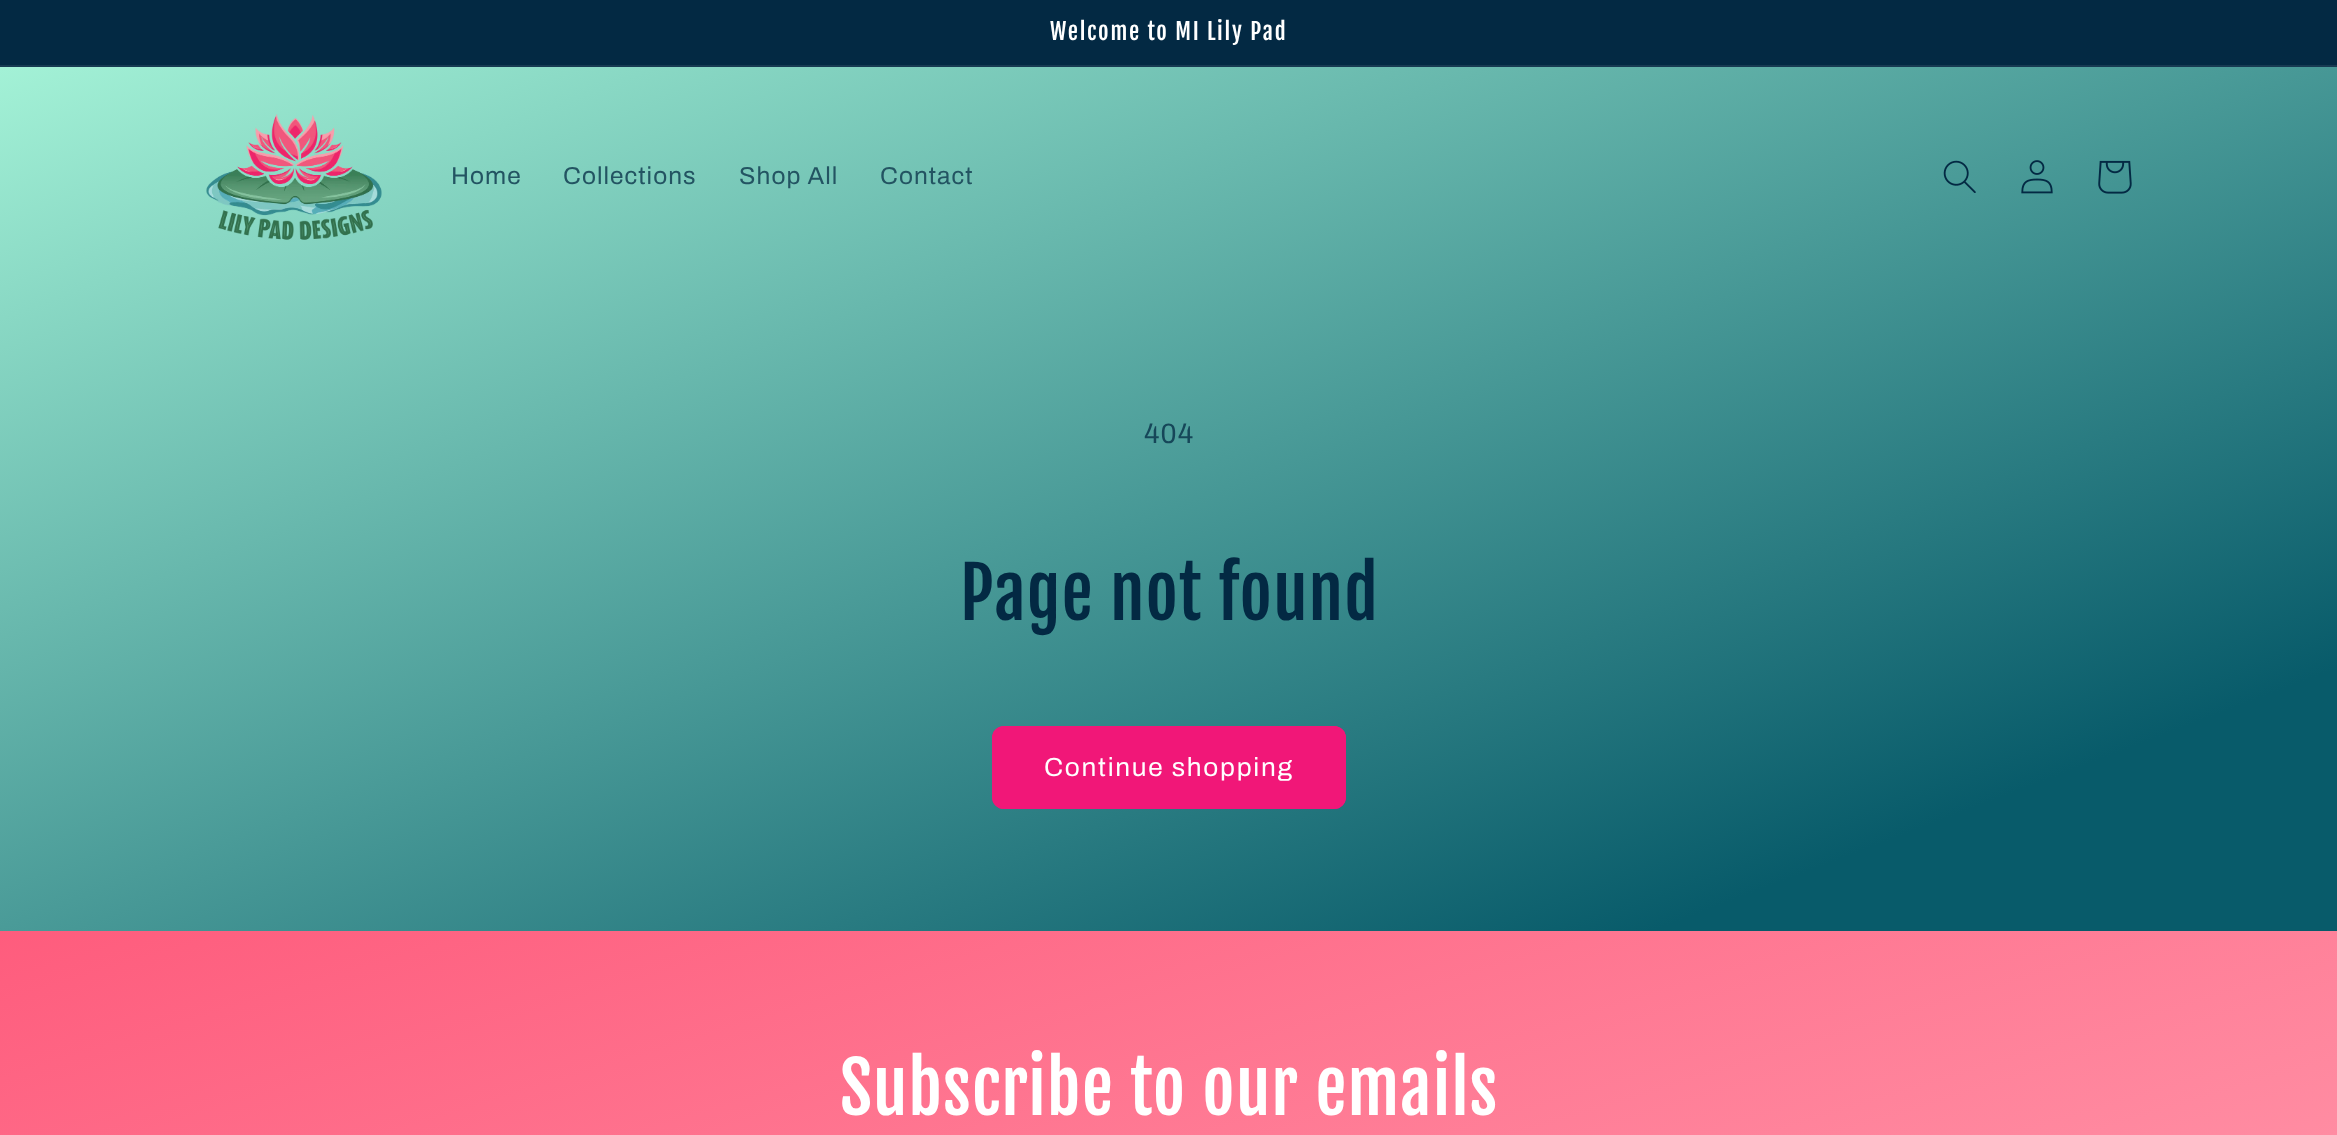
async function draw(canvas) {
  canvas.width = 2337;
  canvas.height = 1135;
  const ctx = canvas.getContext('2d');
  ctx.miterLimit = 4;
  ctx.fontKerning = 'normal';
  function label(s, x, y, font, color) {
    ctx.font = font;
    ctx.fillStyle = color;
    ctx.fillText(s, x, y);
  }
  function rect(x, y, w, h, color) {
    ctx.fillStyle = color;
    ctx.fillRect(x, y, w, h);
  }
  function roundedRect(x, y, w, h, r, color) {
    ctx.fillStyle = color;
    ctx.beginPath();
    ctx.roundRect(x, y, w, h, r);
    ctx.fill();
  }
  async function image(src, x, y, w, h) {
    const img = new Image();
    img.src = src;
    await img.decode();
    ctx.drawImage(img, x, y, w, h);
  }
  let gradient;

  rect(0, 0, 2337, 1135, '#fff');
  gradient = ctx.createLinearGradient(1509, 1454, 829, -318);
  gradient.addColorStop(0.23, '#085b6a');
  gradient.addColorStop(1, '#aaf8db');
  ctx.fillStyle = gradient;
  ctx.fillRect(0, 67, 2337, 864);
  rect(0, 0, 2337, 65, '#032943');
  rect(0, 65, 2337, 2, '#173a52');
  ctx.letterSpacing = '1.75px';
  label('Welcome to MI Lily Pad', 1050, 40, '22.75px Fjalla One', '#fff');
  await image('assets/img1.png', 206, 114, 176, 126);
  ctx.letterSpacing = '1.05px';
  label('Home', 451, 184, '24.5px Archivo', '#235462');
  label('Collections', 563, 184, '24.5px Archivo', '#235462');
  label('Shop All', 739, 184, '24.5px Archivo', '#235462');
  label('Contact', 880, 184, '24.5px Archivo', '#235462');
  await image('assets/img2.png', 1943, 160, 33, 33);
  await image('assets/img3.png', 2021, 160, 32, 34);
  await image('assets/img4.png', 2098, 160, 34, 34);
  label('404', 1144, 443, '28px Archivo', '#164759');
  label('Page not found', 960, 620, '70px Fjalla One', '#032943');
  roundedRect(992, 726, 354, 83, 12, '#f11778');
  ctx.beginPath();
  ctx.roundRect(993, 727, 352, 81, 11);
  ctx.strokeStyle = '#f11778';
  ctx.lineWidth = 2;
  ctx.stroke();
  ctx.letterSpacing = '1.75px';
  label('Continue shopping', 1044, 776, '26.25px Archivo', '#fff');
  gradient = ctx.createLinearGradient(910, -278, 1428, 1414);
  gradient.addColorStop(0, '#ff9181');
  gradient.addColorStop(0.49, '#fe5b7c');
  gradient.addColorStop(1, '#ff8ca2');
  ctx.fillStyle = gradient;
  ctx.fillRect(0, 931, 2337, 204);
  ctx.letterSpacing = '1.05px';
  label('Subscribe to our emails', 840, 1115, '70px Fjalla One', '#fff');
}

draw(document.querySelector('canvas'));
